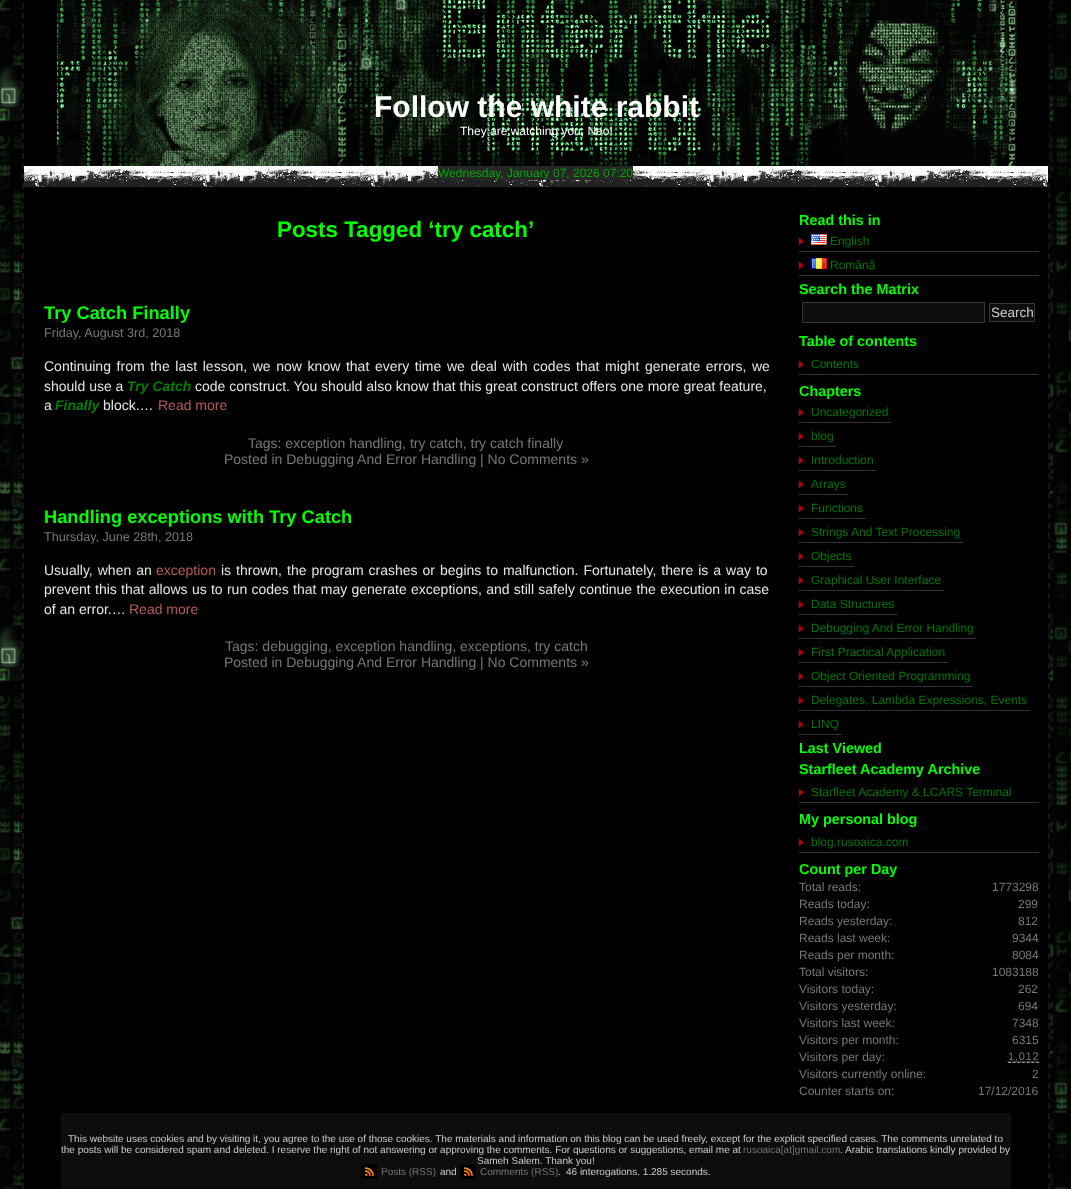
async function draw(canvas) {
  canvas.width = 1071;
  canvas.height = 1189;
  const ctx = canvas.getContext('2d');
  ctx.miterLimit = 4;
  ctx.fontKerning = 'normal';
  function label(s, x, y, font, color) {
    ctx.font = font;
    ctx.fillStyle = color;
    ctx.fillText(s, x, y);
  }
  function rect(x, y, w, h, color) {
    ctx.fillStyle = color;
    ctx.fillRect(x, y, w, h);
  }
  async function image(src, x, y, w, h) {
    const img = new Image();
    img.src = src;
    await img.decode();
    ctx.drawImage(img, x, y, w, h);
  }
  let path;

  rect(0, 0, 1071, 1189, '#fff');
  await image('assets/img1.png', 0, 0, 1071, 1189);
  rect(22, 0, 1028, 1189, '#000');
  path = new Path2D('M1049-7V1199');
  ctx.strokeStyle = '#151515';
  ctx.lineWidth = 2;
  ctx.setLineDash([6, 4]);
  ctx.stroke(path);
  path = new Path2D('M23-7V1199');
  ctx.stroke(path);
  rect(1048, 3, 1, 163, '#000');
  await image('assets/img2.png', 57, 0, 960, 166);
  label('Follow the white rabbit', 374, 117, 'bold 30px Liberation Sans', '#fff');
  label('They are watching you, Neo!', 460, 135, '12px Liberation Sans', '#fff');
  await image('assets/img3.png', 24, 166, 1024, 21);
  rect(438, 166, 195, 14, '#262626');
  label('Wednesday, January 07, 2026 07:20', 438, 177, '12px Liberation Sans', '#0a0');
  label('Posts Tagged ‘try catch’', 277, 237, 'bold 22.4px Liberation Sans', '#0f0');
  label('Try Catch Finally', 44, 319, 'bold 18.25px Liberation Sans', '#0f0');
  label('Friday, August 3rd, 2018', 44, 337, '12.6px Liberation Sans', '#777');
  ctx.wordSpacing = '1.75px';
  label('Continuing from the last lesson, we now know that every time we deal with codes that might generate errors, we', 44, 371, '14px Liberation Sans', '#e5e5e5');
  ctx.wordSpacing = '0px';
  label('should use a', 44, 391, '14px Liberation Sans', '#e5e5e5');
  label('Try Catch', 127, 391, 'italic bold 14px Liberation Sans', '#008000');
  label('code construct. You should also know that this great construct offers one more great feature,', 195, 391, '14px Liberation Sans', '#e5e5e5');
  label('a', 44, 410, '14px Liberation Sans', '#e5e5e5');
  label('Finally', 55, 410, 'italic bold 14px Liberation Sans', '#008000');
  label('block.…', 103, 410, '14px Liberation Sans', '#e5e5e5');
  label('Read more', 158, 410, '14px Liberation Sans', '#b85b5a');
  label('Tags: exception handling, try catch, try catch finally', 248, 448, '14px Liberation Sans', '#777');
  label('Posted in Debugging And Error Handling | No Comments »', 224, 464, '14px Liberation Sans', '#777');
  label('Handling exceptions with Try Catch', 44, 523, 'bold 18.25px Liberation Sans', '#0f0');
  label('Thursday, June 28th, 2018', 44, 541, '12.6px Liberation Sans', '#777');
  ctx.wordSpacing = '1.1px';
  label('Usually, when an', 44, 575, '14px Liberation Sans', '#e5e5e5');
  ctx.wordSpacing = '0px';
  label('exception', 156, 575, '14px Liberation Sans', '#b85b5a');
  ctx.wordSpacing = '1.1px';
  label('is thrown, the program crashes or begins to malfunction. Fortunately, there is a way to', 221, 575, '14px Liberation Sans', '#e5e5e5');
  ctx.wordSpacing = '0.4px';
  label('prevent this that allows us to run codes that may generate exceptions, and still safely continue the execution in case', 44, 594, '14px Liberation Sans', '#e5e5e5');
  ctx.wordSpacing = '0px';
  label('of an error.…', 44, 614, '14px Liberation Sans', '#e5e5e5');
  label('Read more', 129, 614, '14px Liberation Sans', '#b85b5a');
  label('Tags: debugging, exception handling, exceptions, try catch', 225, 651, '14px Liberation Sans', '#777');
  label('Posted in Debugging And Error Handling | No Comments »', 224, 667, '14px Liberation Sans', '#777');
  label('Read this in', 799, 225, 'bold 14.4px Liberation Sans', '#0f0');
  await image('assets/img4.png', 799, 238, 5, 7);
  rect(799, 251, 240, 1, '#333');
  await image('assets/img5.png', 811, 234, 16, 11);
  label('English', 830, 245, '12px Liberation Sans', '#070');
  await image('assets/img4.png', 799, 262, 5, 7);
  rect(799, 275, 240, 1, '#333');
  await image('assets/img6.png', 811, 258, 16, 11);
  label('Română', 830, 269, '12px Liberation Sans', '#070');
  label('Search the Matrix', 799, 294, 'bold 14.4px Liberation Sans', '#0f0');
  ctx.fillStyle = '#0d0d0d';
  ctx.beginPath();
  ctx.rect(802.5, 302.5, 182, 20);
  ctx.fill();
  ctx.strokeStyle = '#37363c';
  ctx.lineWidth = 1;
  ctx.setLineDash([]);
  ctx.stroke();
  ctx.beginPath();
  ctx.rect(989.5, 303.5, 45, 18);
  ctx.fill();
  ctx.stroke();
  label('Search', 991, 317, '13.5px Liberation Sans', '#ccc');
  label('Table of contents', 799, 346, 'bold 14.4px Liberation Sans', '#0f0');
  await image('assets/img4.png', 799, 361, 5, 7);
  rect(799, 374, 240, 1, '#333');
  label('Contents', 811, 368, '12px Liberation Sans', '#070');
  label('Chapters', 799, 396, 'bold 14.4px Liberation Sans', '#0f0');
  await image('assets/img4.png', 799, 409, 5, 7);
  rect(799, 422, 92, 1, '#333');
  label('Uncategorized', 811, 416, '12px Liberation Sans', '#070');
  await image('assets/img4.png', 799, 433, 5, 7);
  rect(799, 446, 37, 1, '#333');
  label('blog', 811, 440, '12px Liberation Sans', '#070');
  await image('assets/img4.png', 799, 457, 5, 7);
  rect(799, 470, 77, 1, '#333');
  label('Introduction', 811, 464, '12px Liberation Sans', '#070');
  await image('assets/img4.png', 799, 481, 5, 7);
  rect(799, 494, 49, 1, '#333');
  label('Arrays', 811, 488, '12px Liberation Sans', '#070');
  await image('assets/img4.png', 799, 505, 5, 7);
  rect(799, 518, 67, 1, '#333');
  label('Functions', 811, 512, '12px Liberation Sans', '#070');
  await image('assets/img4.png', 799, 529, 5, 7);
  rect(799, 542, 164, 1, '#333');
  label('Strings And Text Processing', 811, 536, '12px Liberation Sans', '#070');
  await image('assets/img4.png', 799, 553, 5, 7);
  rect(799, 566, 55, 1, '#333');
  label('Objects', 811, 560, '12px Liberation Sans', '#070');
  await image('assets/img4.png', 799, 577, 5, 7);
  rect(799, 590, 145, 1, '#333');
  label('Graphical User Interface', 811, 584, '12px Liberation Sans', '#070');
  await image('assets/img4.png', 799, 601, 5, 7);
  rect(799, 614, 98, 1, '#333');
  label('Data Structures', 811, 608, '12px Liberation Sans', '#070');
  await image('assets/img4.png', 799, 625, 5, 7);
  rect(799, 638, 177, 1, '#333');
  label('Debugging And Error Handling', 811, 632, '12px Liberation Sans', '#070');
  await image('assets/img4.png', 799, 649, 5, 7);
  rect(799, 662, 149, 1, '#333');
  label('First Practical Application', 811, 656, '12px Liberation Sans', '#070');
  await image('assets/img4.png', 799, 673, 5, 7);
  rect(799, 686, 174, 1, '#333');
  label('Object Oriented Programming', 811, 680, '12px Liberation Sans', '#070');
  await image('assets/img4.png', 799, 697, 5, 7);
  rect(799, 710, 231, 1, '#333');
  label('Delegates, Lambda Expressions, Events', 811, 704, '12px Liberation Sans', '#070');
  await image('assets/img4.png', 799, 721, 5, 7);
  rect(799, 734, 43, 1, '#333');
  label('LINQ', 811, 728, '12px Liberation Sans', '#070');
  label('Last Viewed', 799, 753, 'bold 14.4px Liberation Sans', '#0f0');
  label('Starfleet Academy Archive', 799, 774, 'bold 14.4px Liberation Sans', '#0f0');
  await image('assets/img4.png', 799, 789, 5, 7);
  rect(799, 802, 240, 1, '#333');
  label('Starfleet Academy & LCARS Terminal', 811, 796, '12px Liberation Sans', '#070');
  label('My personal blog', 799, 824, 'bold 14.4px Liberation Sans', '#0f0');
  await image('assets/img4.png', 799, 839, 5, 7);
  rect(799, 852, 240, 1, '#333');
  label('blog.rusoaica.com', 811, 846, '12px Liberation Sans', '#070');
  label('Count per Day', 799, 874, 'bold 14.4px Liberation Sans', '#0f0');
  label('Total reads:', 799, 891, '12px Liberation Sans', '#777');
  label('1773298', 992, 891, '12px Liberation Sans', '#777');
  label('Reads today:', 799, 908, '12px Liberation Sans', '#777');
  label('299', 1018, 908, '12px Liberation Sans', '#777');
  label('Reads yesterday:', 799, 925, '12px Liberation Sans', '#777');
  label('812', 1018, 925, '12px Liberation Sans', '#777');
  label('Reads last week:', 799, 942, '12px Liberation Sans', '#777');
  label('9344', 1012, 942, '12px Liberation Sans', '#777');
  label('Reads per month:', 799, 959, '12px Liberation Sans', '#777');
  label('8084', 1012, 959, '12px Liberation Sans', '#777');
  label('Total visitors:', 799, 976, '12px Liberation Sans', '#777');
  label('1083188', 992, 976, '12px Liberation Sans', '#777');
  label('Visitors today:', 799, 993, '12px Liberation Sans', '#777');
  label('262', 1018, 993, '12px Liberation Sans', '#777');
  label('Visitors yesterday:', 799, 1010, '12px Liberation Sans', '#777');
  label('694', 1018, 1010, '12px Liberation Sans', '#777');
  label('Visitors last week:', 799, 1027, '12px Liberation Sans', '#777');
  label('7348', 1012, 1027, '12px Liberation Sans', '#777');
  label('Visitors per month:', 799, 1044, '12px Liberation Sans', '#777');
  label('6315', 1012, 1044, '12px Liberation Sans', '#777');
  label('Visitors per day:', 799, 1061, '12px Liberation Sans', '#777');
  path = new Path2D('M1007.5 1061.5H1038.5');
  ctx.strokeStyle = '#777';
  ctx.setLineDash([1, 1]);
  ctx.stroke(path);
  ctx.letterSpacing = '0.75px';
  label('1,012', 1008, 1060, '11px Liberation Sans', '#777');
  path = new Path2D('M1008 1062.5H1039');
  ctx.strokeStyle = '#999';
  ctx.setLineDash([3, 1.67]);
  ctx.stroke(path);
  ctx.letterSpacing = '0px';
  label('Visitors currently online:', 799, 1078, '12px Liberation Sans', '#777');
  label('2', 1032, 1078, '12px Liberation Sans', '#777');
  label('Counter starts on:', 799, 1095, '12px Liberation Sans', '#777');
  label('17/12/2016', 978, 1095, '12px Liberation Sans', '#777');
  rect(61, 1113, 950, 76, '#0d0d0d');
  label('This website uses cookies and by visiting it, you agree to the use of those cookies. The materials and information on this blog can be used freely, except for the explicit specified cases. The comments unrelated to', 68, 1142, '10px Liberation Sans', '#ccc');
  label('the posts will be considered spam and deleted. I reserve the right of not answering or approving the comments. For questions or suggestions, email me at', 61, 1153, '10px Liberation Sans', '#ccc');
  label('rusoaica[at]gmail.com', 743, 1153, '10px Liberation Sans', '#777');
  label('. Arabic translations kindly provided by', 840, 1153, '10px Liberation Sans', '#ccc');
  label('Sameh Salem. Thank you!', 477, 1164, '10px Liberation Sans', '#ccc');
  await image('assets/img7.png', 361, 1164, 16, 15);
  label('Posts (RSS)', 381, 1175, '10px Liberation Sans', '#777');
  label('and', 440, 1175, '10px Liberation Sans', '#ccc');
  await image('assets/img7.png', 460, 1164, 16, 15);
  label('Comments (RSS)', 480, 1175, '10px Liberation Sans', '#777');
  label('.', 558, 1175, '10px Liberation Sans', '#ccc');
  label('46 interogations. 1.285 seconds.', 566, 1175, '10px Liberation Sans', '#ccc');
}

draw(document.querySelector('canvas'));
